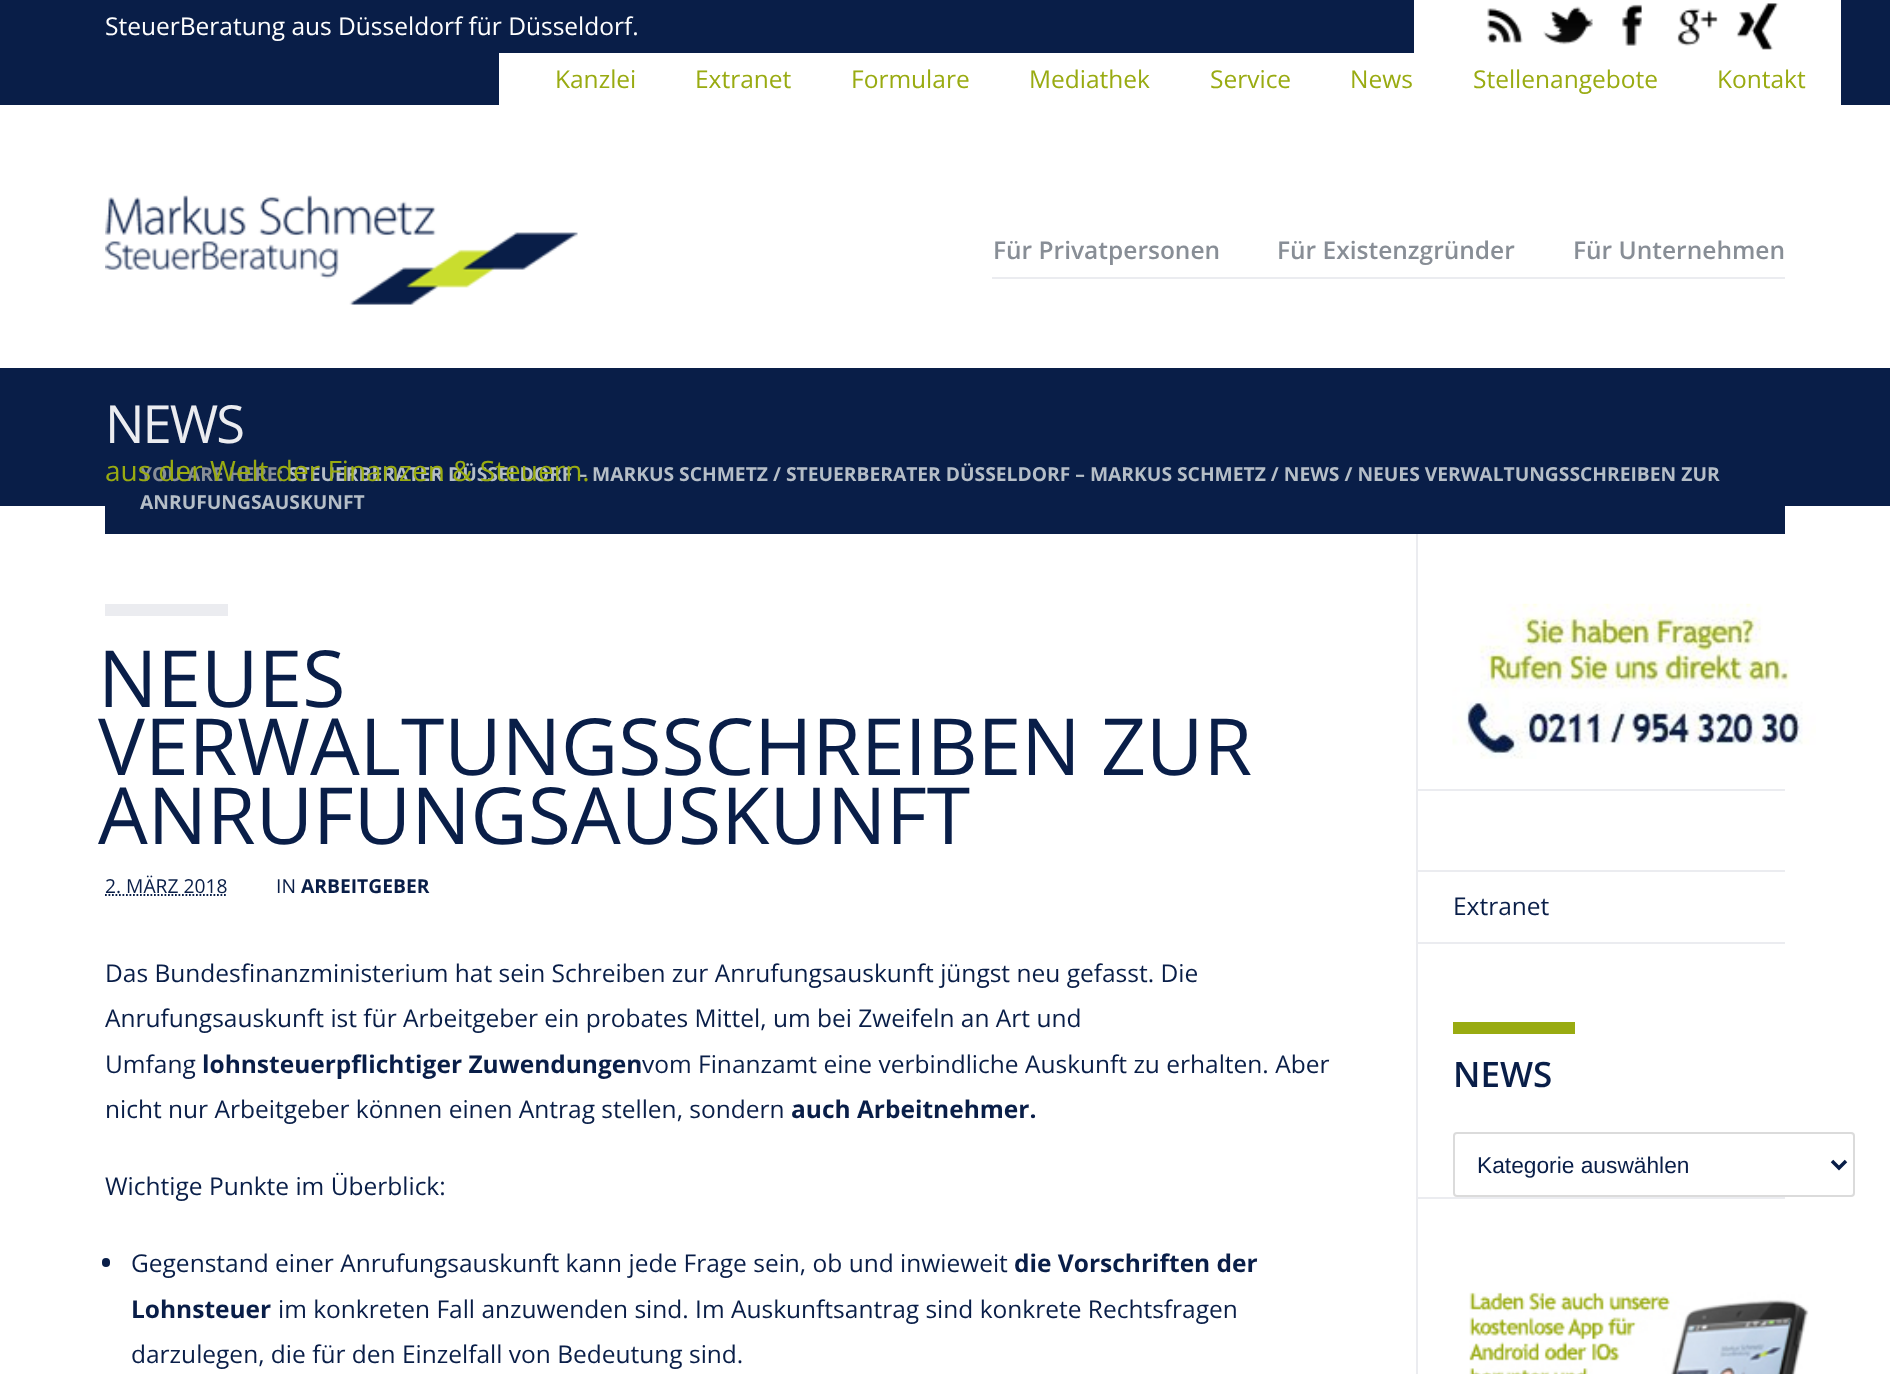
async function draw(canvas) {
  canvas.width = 1890;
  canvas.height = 1374;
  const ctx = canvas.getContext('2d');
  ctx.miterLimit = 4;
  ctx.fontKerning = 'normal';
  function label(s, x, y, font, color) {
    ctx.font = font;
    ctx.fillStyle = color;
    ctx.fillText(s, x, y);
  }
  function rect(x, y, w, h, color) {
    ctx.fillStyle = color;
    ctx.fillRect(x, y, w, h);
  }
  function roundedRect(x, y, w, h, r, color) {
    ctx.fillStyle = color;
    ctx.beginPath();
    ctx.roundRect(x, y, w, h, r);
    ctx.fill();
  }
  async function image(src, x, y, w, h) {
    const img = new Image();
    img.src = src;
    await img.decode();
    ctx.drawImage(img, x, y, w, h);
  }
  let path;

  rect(0, 0, 1890, 1374, '#fff');
  rect(0, 0, 1890, 105, '#091e48');
  label('SteuerBeratung aus Düsseldorf für Düsseldorf.', 105, 35, '24.5px Open Sans', '#fff');
  rect(1414, 0, 427, 53, '#fff');
  await image('assets/img1.png', 1487, 8, 36, 35);
  await image('assets/img2.png', 1543, 6, 50, 39);
  await image('assets/img3.png', 1621, 4, 21, 42);
  await image('assets/img4.png', 1677, 8, 41, 38);
  await image('assets/img5.png', 1736, 3, 43, 47);
  rect(499, 53, 1342, 52, '#fff');
  label('Kanzlei', 555, 88, '24.5px Open Sans', '#99ab11');
  label('Extranet', 695, 88, '24.5px Open Sans', '#99ab11');
  label('Formulare', 851, 88, '24.5px Open Sans', '#99ab11');
  label('Mediathek', 1029, 88, '24.5px Open Sans', '#99ab11');
  label('Service', 1210, 88, '24.5px Open Sans', '#99ab11');
  label('News', 1350, 88, '24.5px Open Sans', '#99ab11');
  label('Stellenangebote', 1473, 88, '24.5px Open Sans', '#99ab11');
  label('Kontakt', 1717, 88, '24.5px Open Sans', '#99ab11');
  await image('assets/img6.png', 105, 195, 473, 110);
  rect(992, 277, 793, 2, '#ebecf0');
  label('Für Privatpersonen', 993, 259, '600 24.5px Open Sans', '#888e96');
  label('Für Existenzgründer', 1277, 259, '600 24.5px Open Sans', '#888e96');
  label('Für Unternehmen', 1573, 259, '600 24.5px Open Sans', '#888e96');
  rect(0, 368, 1890, 138, '#091e48');
  ctx.letterSpacing = '-2px';
  label('NEWS', 105, 443, '52.5px Open Sans', '#ebecf0');
  ctx.letterSpacing = '0px';
  label('YOU ARE HERE:', 140, 481, 'bold 19.25px Open Sans', '#888e96');
  label('STEUERBERATER DÜSSELDORF – MARKUS SCHMETZ / STEUERBERATER DÜSSELDORF – MARKUS SCHMETZ / NEWS / NEUES VERWALTUNGSSCHREIBEN ZUR', 288, 481, 'bold 19.25px Open Sans', '#b5bec7');
  label('aus der Welt der Finanzen & Steuern.', 105, 481, '28px Open Sans', '#99ab11');
  rect(105, 506, 1680, 28, '#091e48');
  label('ANRUFUNGSAUSKUNFT', 140, 509, 'bold 19.25px Open Sans', '#b5bec7');
  rect(1416, 534, 2, 840, '#ebecf0');
  rect(105, 604, 123, 12, '#ebecf0');
  label('NEUES', 98, 707, '78.75px Open Sans', '#091e48');
  label('VERWALTUNGSSCHREIBEN ZUR', 98, 775, '78.75px Open Sans', '#091e48');
  label('ANRUFUNGSAUSKUNFT', 98, 844, '78.75px Open Sans', '#091e48');
  label('2. MÄRZ 2018', 105, 893, '19.25px Open Sans', '#091e48');
  path = new Path2D('M105 895H227.5');
  ctx.strokeStyle = '#091e48';
  ctx.lineWidth = 1.8;
  ctx.setLineDash([1.75, 1.75]);
  ctx.stroke(path);
  label('IN', 276, 893, '19.25px Open Sans', '#091e48');
  label('ARBEITGEBER', 301, 893, 'bold 19.25px Open Sans', '#091e48');
  label('Das Bundesfinanzministerium hat sein Schreiben zur Anrufungsauskunft jüngst neu gefasst. Die', 105, 982, '24.5px Open Sans', '#091e48');
  label('Anrufungsauskunft ist für Arbeitgeber ein probates Mittel, um bei Zweifeln an Art und', 105, 1027, '24.5px Open Sans', '#091e48');
  label('Umfang', 105, 1073, '24.5px Open Sans', '#091e48');
  label('lohnsteuerpflichtiger Zuwendungen', 202, 1073, 'bold 24.5px Open Sans', '#091e48');
  label('vom Finanzamt eine verbindliche Auskunft zu erhalten. Aber', 642, 1073, '24.5px Open Sans', '#091e48');
  label('nicht nur Arbeitgeber können einen Antrag stellen, sondern', 105, 1118, '24.5px Open Sans', '#091e48');
  label('auch Arbeitnehmer.', 791, 1118, 'bold 24.5px Open Sans', '#091e48');
  label('Wichtige Punkte im Überblick:', 105, 1195, '24.5px Open Sans', '#091e48');
  roundedRect(102, 1258, 8, 9, 4, '#091e48');
  label('Gegenstand einer Anrufungsauskunft kann jede Frage sein, ob und inwieweit', 131, 1272, '24.5px Open Sans', '#091e48');
  label('die Vorschriften der', 1014, 1272, 'bold 24.5px Open Sans', '#091e48');
  label('Lohnsteuer', 131, 1318, 'bold 24.5px Open Sans', '#091e48');
  label('im konkreten Fall anzuwenden sind. Im Auskunftsantrag sind konkrete Rechtsfragen', 278, 1318, '24.5px Open Sans', '#091e48');
  label('darzulegen, die für den Einzelfall von Bedeutung sind.', 131, 1363, '24.5px Open Sans', '#091e48');
  rect(1418, 789, 367, 2, '#ebecf0');
  await image('assets/img7.png', 1452, 603, 364, 156);
  rect(1418, 942, 367, 2, '#ebecf0');
  rect(1418, 870, 367, 2, '#ebecf0');
  label('Extranet', 1453, 915, '24.5px Open Sans', '#091e48');
  rect(1418, 1197, 367, 2, '#ebecf0');
  rect(1453, 1022, 122, 12, '#99ab11');
  label('NEWS', 1453, 1087, '600 35px Open Sans', '#091e48');
  ctx.beginPath();
  ctx.roundRect(1454, 1133, 400, 63, 3);
  ctx.strokeStyle = '#dbdbdb';
  ctx.lineWidth = 2;
  ctx.setLineDash([]);
  ctx.stroke();
  path = new Path2D('M1832 1161L1839 1168L1846 1161');
  ctx.strokeStyle = '#091e48';
  ctx.lineWidth = 3.5;
  ctx.stroke(path);
  label('Kategorie auswählen', 1477, 1173, '22.75px Liberation Sans', '#091e48');
  await image('assets/img8.png', 1469, 1292, 340, 82);
}

draw(document.querySelector('canvas'));
